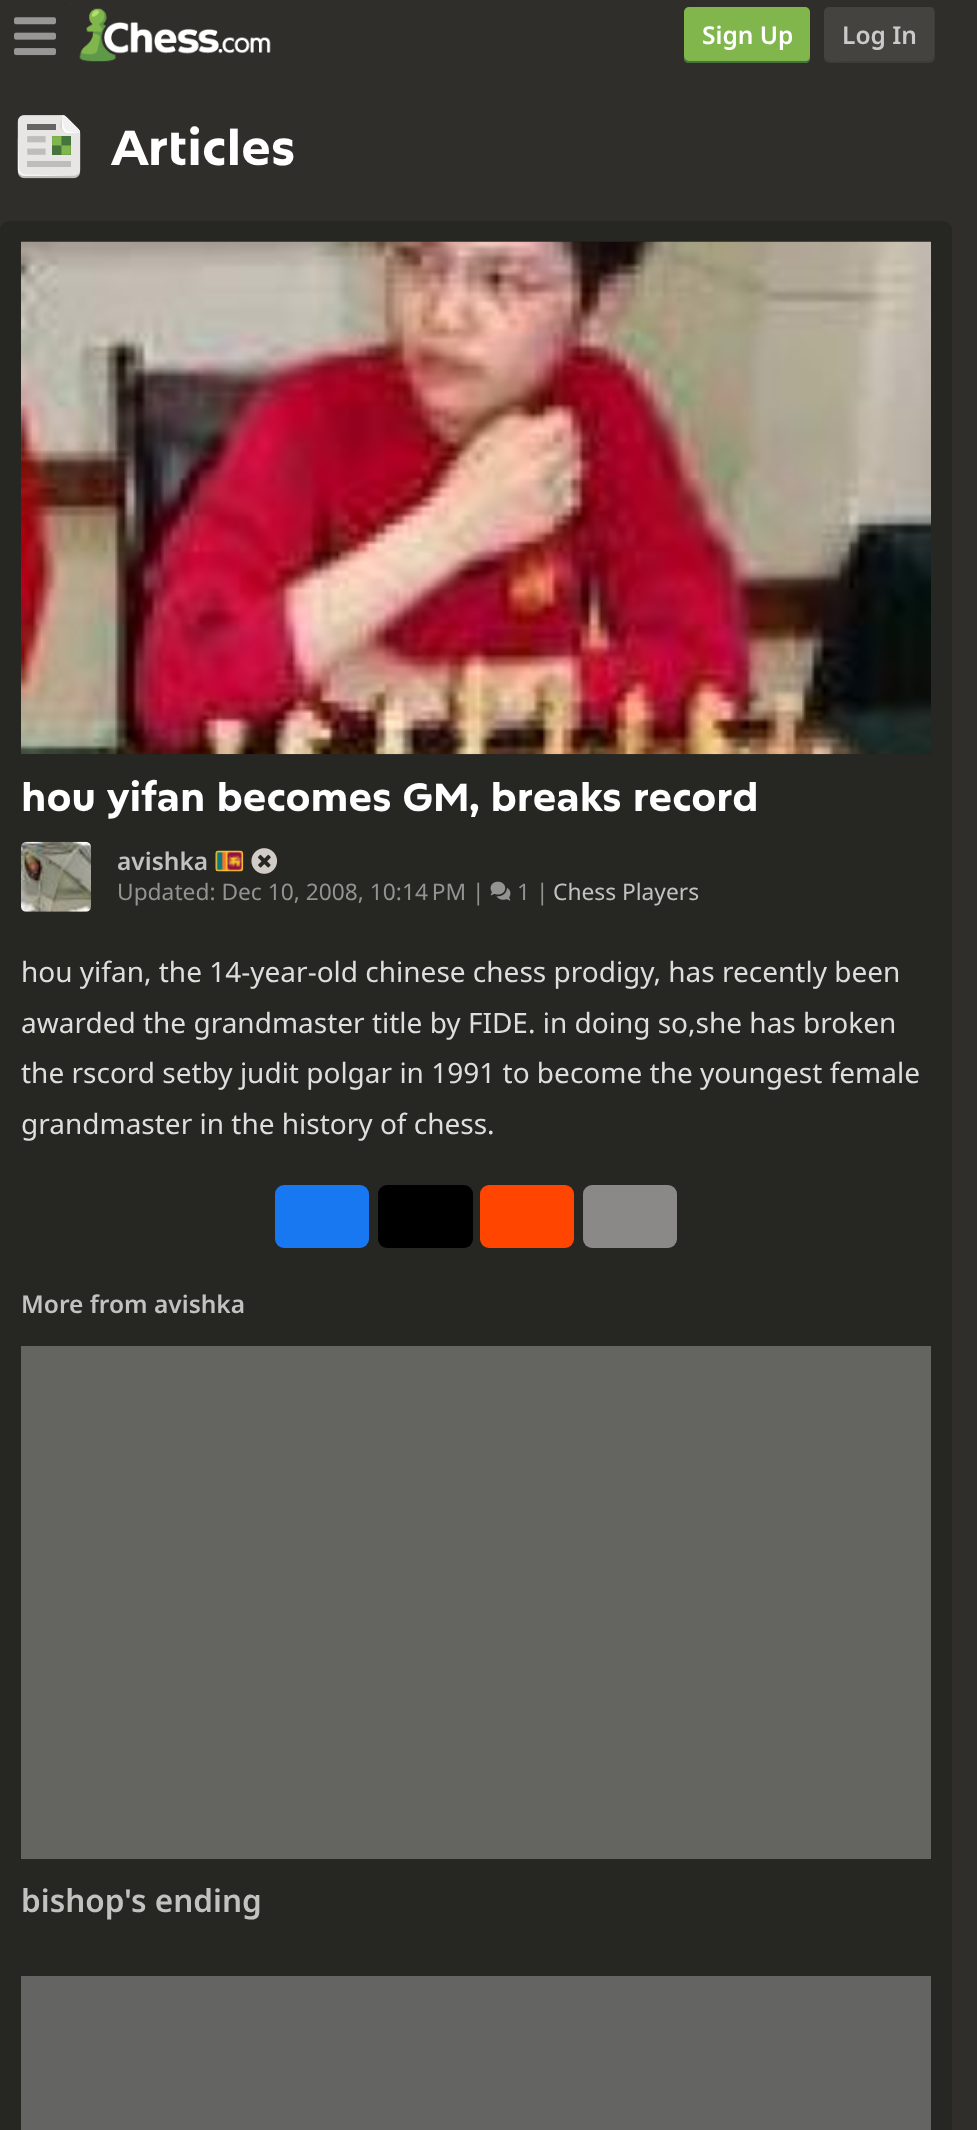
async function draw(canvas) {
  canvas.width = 977;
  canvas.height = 2130;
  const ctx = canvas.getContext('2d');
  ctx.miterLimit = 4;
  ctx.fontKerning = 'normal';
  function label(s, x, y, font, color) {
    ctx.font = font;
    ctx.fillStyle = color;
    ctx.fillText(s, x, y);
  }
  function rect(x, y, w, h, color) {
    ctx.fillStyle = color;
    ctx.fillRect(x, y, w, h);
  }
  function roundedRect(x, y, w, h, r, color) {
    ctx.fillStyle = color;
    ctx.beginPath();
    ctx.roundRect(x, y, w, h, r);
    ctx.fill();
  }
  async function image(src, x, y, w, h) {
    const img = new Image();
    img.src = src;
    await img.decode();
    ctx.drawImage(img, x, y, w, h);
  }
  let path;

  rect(0, 0, 977, 2130, '#302e2b');
  await image('assets/img1.png', 14, 17, 42, 39);
  await image('assets/img2.png', 70, 2, 201, 60);
  roundedRect(684, 7, 126, 56, 5, '#81b64c');
  ctx.fillStyle = '#45753c';
  path = new Path2D('M684 56V58C684 61 686 63 689 63H805C808 63 810 61 810 58V56C810 59 808 61 805 61H690C687 61 684 59 684 56Z');
  ctx.fill(path);
  label('Sign Up', 702, 44, '600 24.5px Noto Sans', '#fff');
  roundedRect(824, 7, 111, 56, 5, '#454340');
  ctx.fillStyle = '#0000001a';
  path = new Path2D('M824 56V58C824 61 826 63 829 63H930C933 63 935 61 935 58V12C935 11 935 10 934 9V41C934 64 937 61 912 61H846C838 61 824 64 824 56Z');
  ctx.fill(path);
  label('Log In', 842, 44, '600 24.5px Noto Sans', '#cbcaca');
  await image('assets/img3.png', 17, 115, 64, 64);
  label('Articles', 112, 165, 'bold 49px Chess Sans', '#fff');
  roundedRect(0, 221, 952, 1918, 9, '#262623');
  await image('assets/img4.png', 21, 241, 910, 514);
  label('hou yifan becomes GM, breaks record', 21, 811, 'bold 39.1px Chess Sans', '#fff');
  ctx.beginPath();
  ctx.roundRect(22, 843, 68, 68, 4);
  ctx.strokeStyle = '#31312e';
  ctx.lineWidth = 2;
  ctx.stroke();
  await image('assets/img5.png', 21, 841, 70, 71);
  label('avishka', 117, 870, '600 24.5px Noto Sans', '#c2c2c1');
  await image('assets/img6.png', 215, 850, 29, 22);
  await image('assets/img7.png', 251, 848, 27, 26);
  label('Updated: Dec 10, 2008, 10:14 PM', 117, 900, '22.75px Noto Sans', '#939391');
  label('|', 472, 900, '22.75px Noto Sans', '#939391');
  await image('assets/img8.png', 490, 881, 21, 20);
  label('1', 517, 900, '22.75px Noto Sans', '#939391');
  label('|', 536, 900, '22.75px Noto Sans', '#939391');
  label('Chess Players', 553, 900, '22.75px Noto Sans', '#c2c2c1');
  label('hou yifan, the 14-year-old chinese chess prodigy, has recently been', 21, 982, '28px Noto Sans', '#dedede');
  label('awarded the grandmaster title by FIDE. in doing so,she has broken', 21, 1033, '28px Noto Sans', '#dedede');
  label('the rscord setby judit polgar in 1991 to become the youngest female', 21, 1083, '28px Noto Sans', '#dedede');
  label('grandmaster in the history of chess.', 21, 1134, '28px Noto Sans', '#dedede');
  roundedRect(275, 1185, 94, 63, 9, '#1778f2');
  roundedRect(378, 1185, 95, 63, 9, '#000');
  roundedRect(480, 1185, 94, 63, 9, '#ff4500');
  roundedRect(583, 1185, 94, 63, 9, '#8b8987');
  label('More from avishka', 21, 1313, '600 24.5px Noto Sans', '#c2c2c1');
  rect(21, 1346, 910, 513, '#646461');
  label('bishop\'s ending', 21, 1912, '600 31.5px Noto Sans', '#c2c2c1');
  rect(21, 1976, 910, 154, '#646462');
}

draw(document.querySelector('canvas'));
